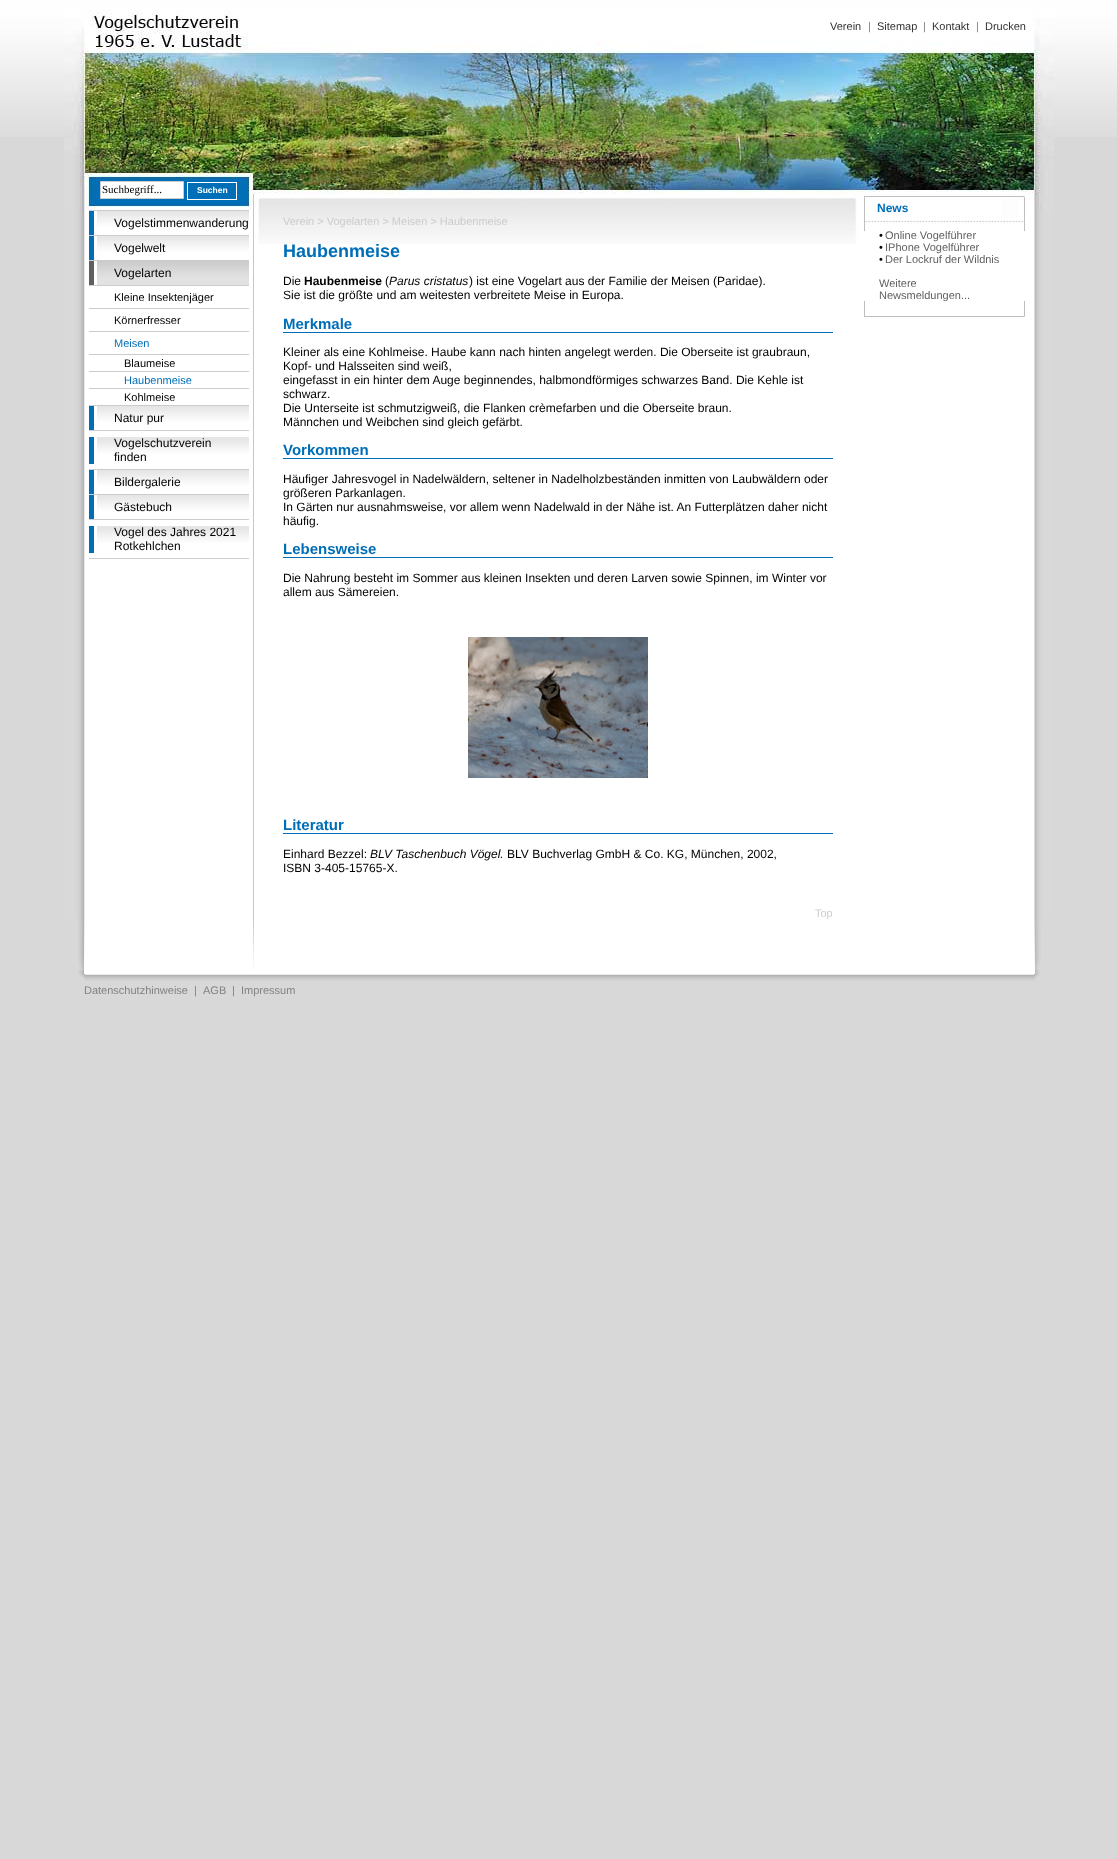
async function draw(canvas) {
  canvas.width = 1117;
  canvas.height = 1859;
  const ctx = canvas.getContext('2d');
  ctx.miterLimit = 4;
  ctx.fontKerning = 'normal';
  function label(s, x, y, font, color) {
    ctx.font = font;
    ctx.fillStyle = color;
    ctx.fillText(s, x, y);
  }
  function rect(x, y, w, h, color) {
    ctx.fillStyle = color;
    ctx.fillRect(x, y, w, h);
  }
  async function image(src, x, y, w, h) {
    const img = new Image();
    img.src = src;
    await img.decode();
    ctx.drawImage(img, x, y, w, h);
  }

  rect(0, 0, 1117, 1859, '#d8d8d8');
  await image('assets/img1.png', 0, 0, 1117, 137);
  await image('assets/img2.png', 64, 10, 990, 200);
  label('Verein', 830, 30, '11px Liberation Sans', '#333');
  label('|', 868, 30, '11px Liberation Sans', '#828282');
  label('Sitemap', 877, 30, '11px Liberation Sans', '#333');
  label('|', 923, 30, '11px Liberation Sans', '#828282');
  label('Kontakt', 932, 30, '11px Liberation Sans', '#333');
  label('|', 976, 30, '11px Liberation Sans', '#828282');
  label('Drucken', 985, 30, '11px Liberation Sans', '#333');
  ctx.fillStyle = '#fff';
  ctx.beginPath();
  ctx.rect(100.5, 181.5, 83, 17);
  ctx.fill();
  ctx.strokeStyle = '#ccc';
  ctx.stroke();
  label('Suchbegriff...', 102, 193, '11px Liberation Serif', '#000');
  rect(188, 183, 48, 4, '#006eb6');
  ctx.strokeStyle = '#fff';
  ctx.strokeRect(187.5, 182.5, 49, 17);
  label('Suchen', 197, 193, 'bold 8.5px Liberation Sans', '#fff');
  await image('assets/img3.png', 64, 210, 990, 709);
  rect(89, 210, 160, 1, '#ccc');
  rect(89, 235, 160, 1, '#ccc');
  await image('assets/img4.png', 89, 211, 160, 24);
  label('Vogelstimmenwanderung', 114, 227, '12px Liberation Sans', '#000');
  rect(89, 260, 160, 1, '#ccc');
  await image('assets/img4.png', 89, 236, 160, 24);
  label('Vogelwelt', 114, 252, '12px Liberation Sans', '#000');
  rect(89, 285, 160, 1, '#ccc');
  await image('assets/img5.png', 89, 261, 160, 24);
  label('Vogelarten', 114, 277, '12px Liberation Sans', '#000');
  rect(89, 308, 160, 1, '#ccc');
  label('Kleine Insektenjäger', 114, 301, '11px Liberation Sans', '#000');
  rect(89, 331, 160, 1, '#ccc');
  label('Körnerfresser', 114, 324, '11px Liberation Sans', '#000');
  rect(89, 354, 160, 1, '#ccc');
  label('Meisen', 114, 347, '11px Liberation Sans', '#006eb6');
  rect(89, 371, 160, 1, '#ccc');
  label('Blaumeise', 124, 367, '11px Liberation Sans', '#000');
  rect(89, 388, 160, 1, '#ccc');
  label('Haubenmeise', 124, 384, '11px Liberation Sans', '#006eb6');
  rect(89, 405, 160, 1, '#ccc');
  label('Kohlmeise', 124, 401, '11px Liberation Sans', '#000');
  rect(89, 430, 160, 1, '#ccc');
  await image('assets/img4.png', 89, 406, 160, 24);
  label('Natur pur', 114, 422, '12px Liberation Sans', '#000');
  rect(89, 469, 160, 1, '#ccc');
  await image('assets/img6.png', 89, 437, 160, 27);
  label('Vogelschutzverein', 114, 447, '12px Liberation Sans', '#000');
  label('finden', 114, 461, '12px Liberation Sans', '#000');
  rect(89, 494, 160, 1, '#ccc');
  await image('assets/img4.png', 89, 470, 160, 24);
  label('Bildergalerie', 114, 486, '12px Liberation Sans', '#000');
  rect(89, 519, 160, 1, '#ccc');
  await image('assets/img4.png', 89, 495, 160, 24);
  label('Gästebuch', 114, 511, '12px Liberation Sans', '#000');
  rect(89, 558, 160, 1, '#ccc');
  await image('assets/img6.png', 89, 526, 160, 27);
  label('Vogel des Jahres 2021', 114, 536, '12px Liberation Sans', '#000');
  label('Rotkehlchen', 114, 550, '12px Liberation Sans', '#000');
  await image('assets/img7.png', 255, 195, 605, 49);
  label('Verein > Vogelarten > Meisen > Haubenmeise', 283, 225, '11px Liberation Sans', '#ccc');
  label('Haubenmeise', 283, 257, 'bold 18px Liberation Sans', '#006eb6');
  label('Die', 283, 285, '12px Liberation Sans', '#000');
  label('Haubenmeise', 304, 285, 'bold 12px Liberation Sans', '#000');
  label('(', 385, 285, '12px Liberation Sans', '#000');
  label('Parus cristatus', 389, 285, 'italic 12px Liberation Sans', '#000');
  label(') ist eine Vogelart aus der Familie der Meisen (Paridae).', 469, 285, '12px Liberation Sans', '#000');
  label('Sie ist die größte und am weitesten verbreitete Meise in Europa.', 283, 299, '12px Liberation Sans', '#000');
  rect(283, 332, 550, 1, '#006eb6');
  label('Merkmale', 283, 329, 'bold 15px Liberation Sans', '#006eb6');
  label('Kleiner als eine Kohlmeise. Haube kann nach hinten angelegt werden. Die Oberseite ist graubraun,', 283, 356, '12px Liberation Sans', '#000');
  label('Kopf- und Halsseiten sind weiß,', 283, 370, '12px Liberation Sans', '#000');
  label('eingefasst in ein hinter dem Auge beginnendes, halbmondförmiges schwarzes Band. Die Kehle ist', 283, 384, '12px Liberation Sans', '#000');
  label('schwarz.', 283, 398, '12px Liberation Sans', '#000');
  label('Die Unterseite ist schmutzigweiß, die Flanken crèmefarben und die Oberseite braun.', 283, 412, '12px Liberation Sans', '#000');
  label('Männchen und Weibchen sind gleich gefärbt.', 283, 426, '12px Liberation Sans', '#000');
  rect(283, 458, 550, 1, '#006eb6');
  label('Vorkommen', 283, 455, 'bold 15px Liberation Sans', '#006eb6');
  label('Häufiger Jahresvogel in Nadelwäldern, seltener in Nadelholzbeständen inmitten von Laubwäldern oder', 283, 483, '12px Liberation Sans', '#000');
  label('größeren Parkanlagen.', 283, 497, '12px Liberation Sans', '#000');
  label('In Gärten nur ausnahmsweise, vor allem wenn Nadelwald in der Nähe ist. An Futterplätzen daher nicht', 283, 511, '12px Liberation Sans', '#000');
  label('häufig.', 283, 525, '12px Liberation Sans', '#000');
  rect(283, 557, 550, 1, '#006eb6');
  label('Lebensweise', 283, 554, 'bold 15px Liberation Sans', '#006eb6');
  label('Die Nahrung besteht im Sommer aus kleinen Insekten und deren Larven sowie Spinnen, im Winter vor', 283, 582, '12px Liberation Sans', '#000');
  label('allem aus Sämereien.', 283, 596, '12px Liberation Sans', '#000');
  await image('assets/img8.png', 468, 637, 180, 141);
  rect(283, 833, 550, 1, '#006eb6');
  label('Literatur', 283, 830, 'bold 15px Liberation Sans', '#006eb6');
  label('Einhard Bezzel:', 283, 858, '12px Liberation Sans', '#000');
  label('BLV Taschenbuch Vögel.', 370, 858, 'italic 12px Liberation Sans', '#000');
  label('BLV Buchverlag GmbH & Co. KG, München, 2002,', 507, 858, '12px Liberation Sans', '#000');
  label('ISBN 3-405-15765-X.', 283, 872, '12px Liberation Sans', '#000');
  label('Top', 815, 917, '11px Liberation Sans', '#ccc');
  rect(862, 192, 1, 10, '#fff');
  await image('assets/img9.png', 863, 192, 163, 39);
  label('News', 877, 212, 'bold 12px Liberation Sans', '#006eb6');
  label('•', 879, 239, '11px Liberation Sans', '#000');
  label('Online Vogelführer', 885, 239, '11px Liberation Sans', '#5f5f5f');
  label('•', 879, 251, '11px Liberation Sans', '#000');
  label('IPhone Vogelführer', 885, 251, '11px Liberation Sans', '#5f5f5f');
  label('•', 879, 263, '11px Liberation Sans', '#000');
  label('Der Lockruf der Wildnis', 885, 263, '11px Liberation Sans', '#5f5f5f');
  label('Weitere', 879, 287, '11px Liberation Sans', '#5f5f5f');
  label('Newsmeldungen...', 879, 299, '11px Liberation Sans', '#5f5f5f');
  await image('assets/img10.png', 864, 301, 163, 18);
  rect(827, 919, 1, 1, '#d9d9d9');
  await image('assets/img11.png', 78, 919, 963, 50);
  await image('assets/img12.png', 78, 969, 962, 12);
  label('Datenschutzhinweise', 84, 994, '11px Liberation Sans', '#828282');
  label('|', 194, 994, '11px Liberation Sans', '#828282');
  label('AGB', 203, 994, '11px Liberation Sans', '#828282');
  label('|', 232, 994, '11px Liberation Sans', '#828282');
  label('Impressum', 241, 994, '11px Liberation Sans', '#828282');
}

draw(document.querySelector('canvas'));
